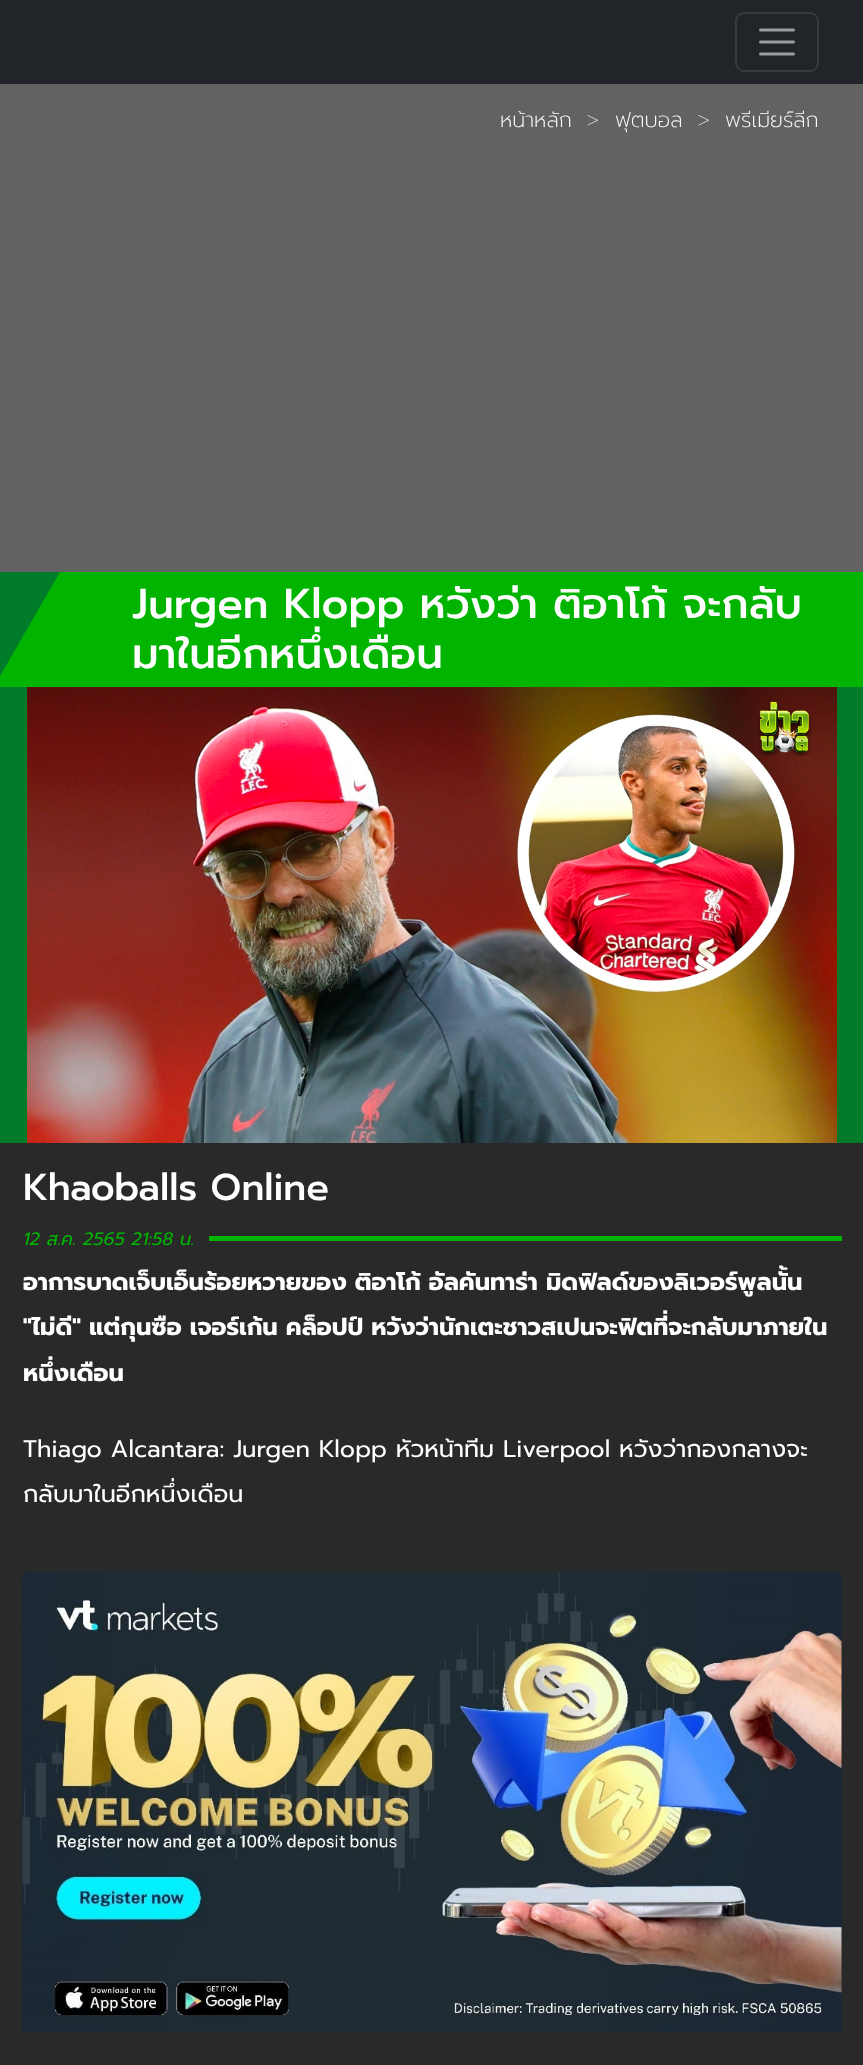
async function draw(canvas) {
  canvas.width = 863;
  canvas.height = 2065;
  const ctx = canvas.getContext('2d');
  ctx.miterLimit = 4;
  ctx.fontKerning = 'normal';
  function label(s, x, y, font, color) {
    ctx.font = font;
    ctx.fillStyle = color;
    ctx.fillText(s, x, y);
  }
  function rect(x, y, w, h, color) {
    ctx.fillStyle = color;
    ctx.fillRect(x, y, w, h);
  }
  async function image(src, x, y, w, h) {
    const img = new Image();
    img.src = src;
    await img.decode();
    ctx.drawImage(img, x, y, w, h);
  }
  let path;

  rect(0, 0, 863, 2065, '#626262');
  rect(0, 0, 863, 84, '#212529');
  ctx.beginPath();
  ctx.roundRect(736, 13, 82, 58, 8);
  ctx.strokeStyle = '#373b3e';
  ctx.lineWidth = 2;
  ctx.stroke();
  path = new Path2D('M760.5 30H793.5M760.5 42H793.5M760.5 54H793.5');
  ctx.strokeStyle = '#9b9d9f';
  ctx.lineWidth = 3;
  ctx.lineCap = 'round';
  ctx.stroke(path);
  label('หน้าหลัก', 500, 127, '200 21px Prompt', '#fff');
  label('>', 586, 128, '100 24px Prompt', '#fff');
  label('ฟุตบอล', 615, 127, '200 21px Prompt', '#fff');
  label('>', 697, 128, '100 24px Prompt', '#fff');
  label('พรีเมียร์ลีก', 725, 127, '200 21px Prompt', '#fff');
  rect(0, 687, 863, 456, '#007b2a');
  rect(0, 572, 863, 115, '#00b400');
  ctx.fillStyle = '#007b2a';
  path = new Path2D('M0 572H60L0 676H-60Z');
  ctx.fill(path);
  label('Jurgen Klopp หวังว่า ติอาโก้ จะกลับ', 132, 618, '500 42px Prompt', '#fff');
  label('มาในอีกหนึ่งเดือน', 132, 668, '500 42px Prompt', '#fff');
  await image('assets/img1.png', 27, 687, 810, 456);
  rect(0, 1143, 863, 922, '#292929');
  label('Khaoballs Online', 23, 1200, '500 37.5px Prompt', '#fff');
  label('12 ส.ค. 2565 21:58 น.', 23, 1245, 'italic 18px Prompt', '#00b400');
  rect(209, 1236, 633, 5, '#00b400');
  label('อาการบาดเจ็บเอ็นร้อยหวายของ ติอาโก้ อัลคันทาร่า มิดฟิลด์ของลิเวอร์พูลนั้น', 23, 1290, 'bold 24px Prompt', '#fff');
  label('"ไม่ดี" แต่กุนซือ เจอร์เก้น คล็อปป์ หวังว่านักเตะชาวสเปนจะฟิตที่จะกลับมาภายใน', 23, 1335, 'bold 24px Prompt', '#fff');
  label('หนึ่งเดือน', 23, 1381, 'bold 24px Prompt', '#fff');
  label('Thiago Alcantara: Jurgen Klopp หัวหน้าทีม Liverpool หวังว่ากองกลางจะ', 23, 1457, '24px Prompt', '#fff');
  label('กลับมาในอีกหนึ่งเดือน', 23, 1502, '24px Prompt', '#fff');
  await image('assets/img2.png', 22, 1572, 820, 461);
}

draw(document.querySelector('canvas'));
